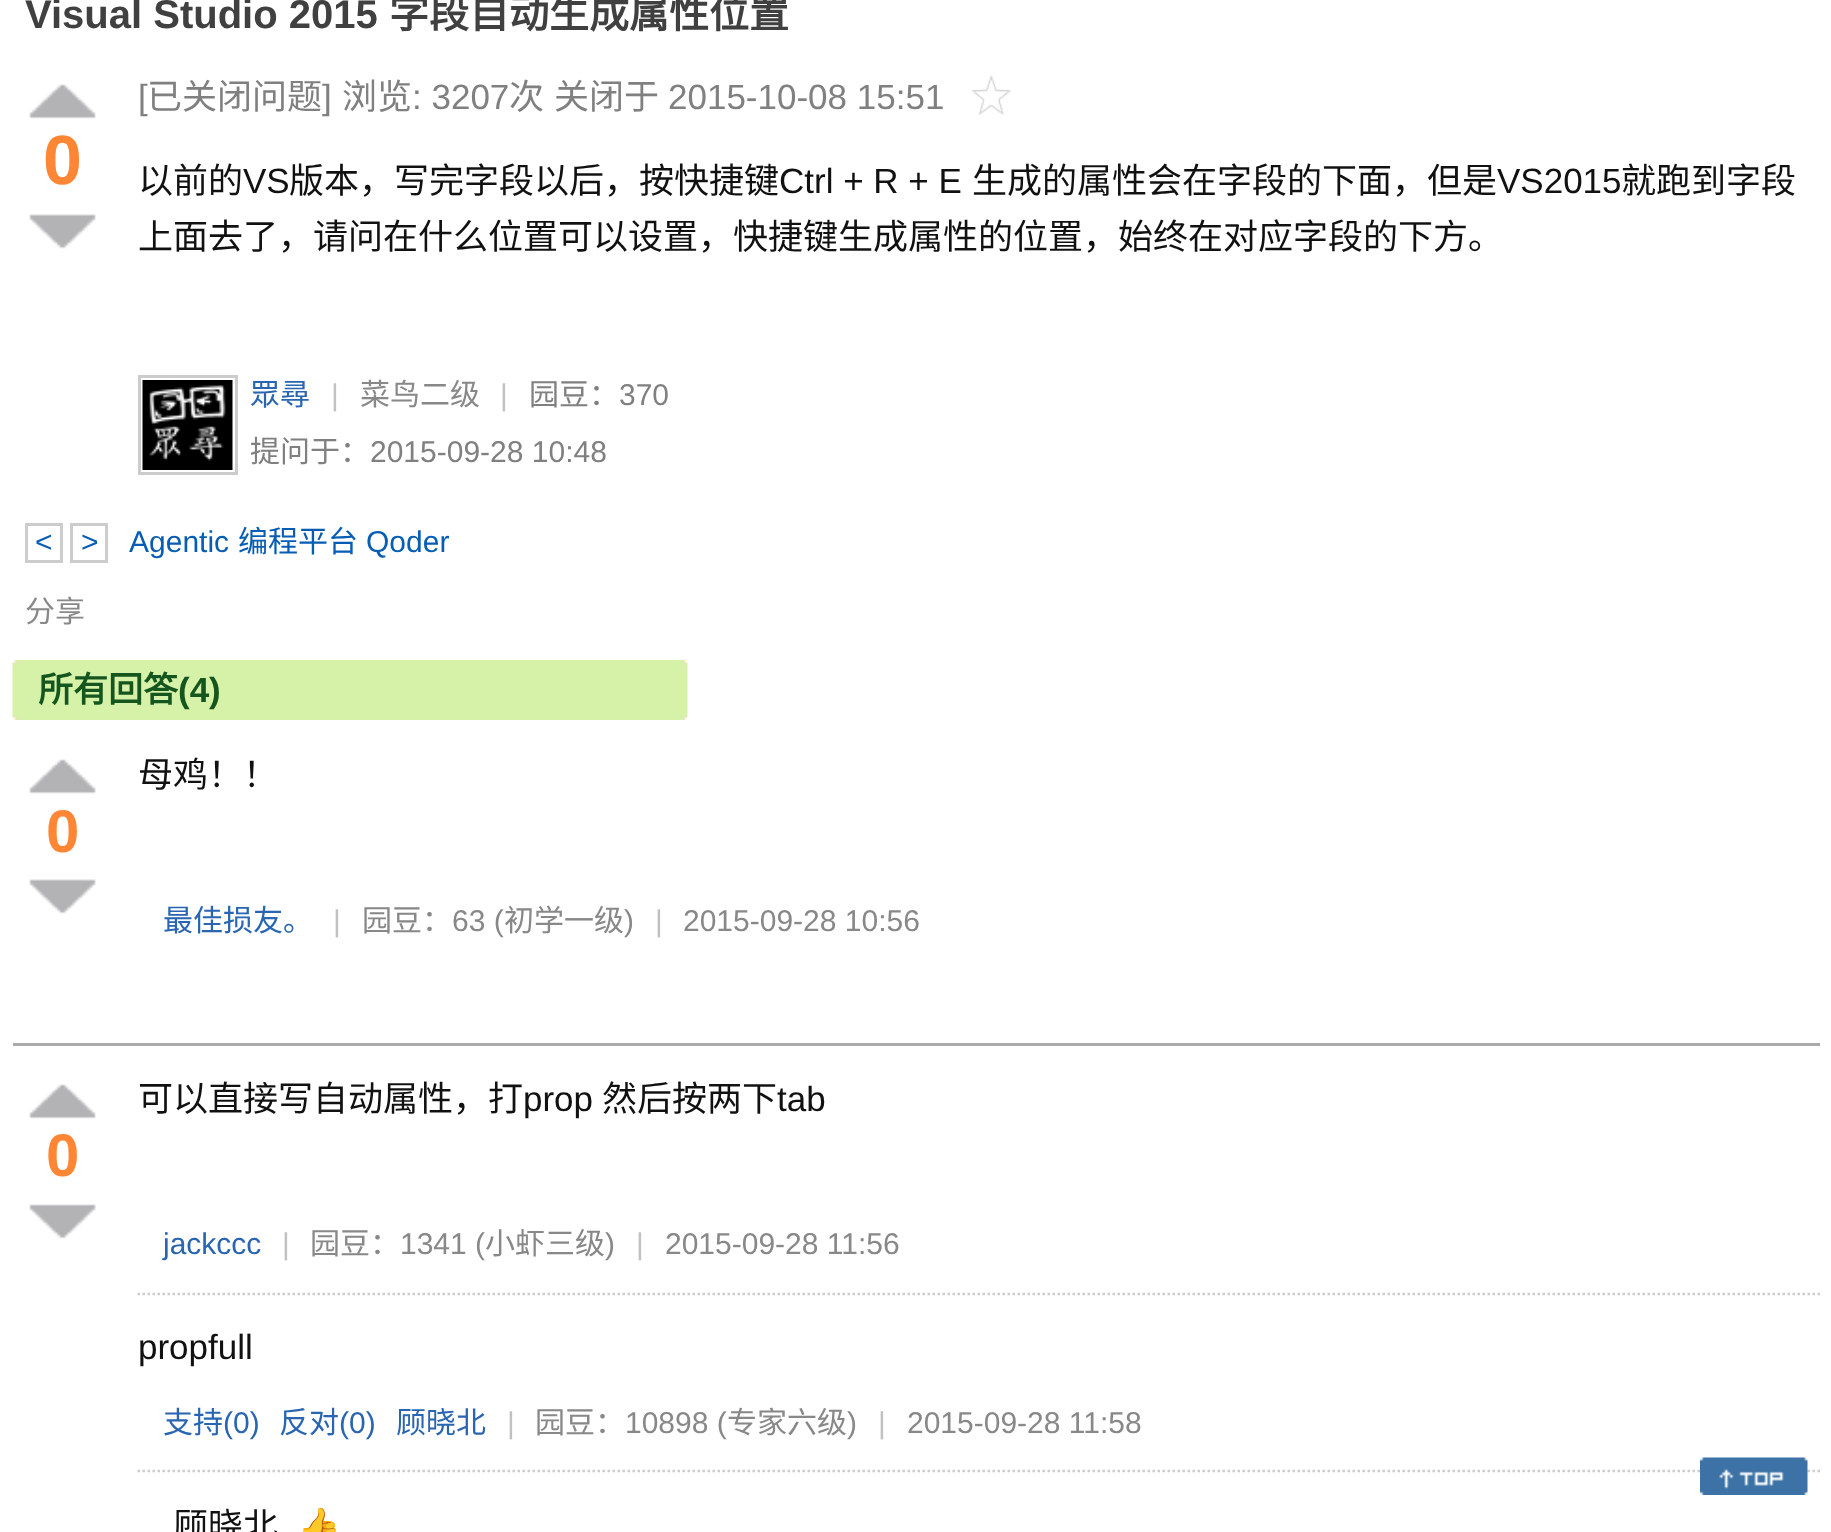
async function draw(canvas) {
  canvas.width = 1831;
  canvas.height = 1532;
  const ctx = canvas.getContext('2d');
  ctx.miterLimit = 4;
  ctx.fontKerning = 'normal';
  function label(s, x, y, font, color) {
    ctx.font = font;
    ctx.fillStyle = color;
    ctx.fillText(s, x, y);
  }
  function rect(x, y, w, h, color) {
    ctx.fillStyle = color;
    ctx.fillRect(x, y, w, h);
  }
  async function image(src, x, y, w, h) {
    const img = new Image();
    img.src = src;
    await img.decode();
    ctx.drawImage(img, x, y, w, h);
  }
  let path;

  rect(0, 0, 1831, 1532, '#fff');
  label('Visual Studio 2015', 25, 28, 'bold 40px Liberation Sans', '#404040');
  label('字段自动生成属性位置', 389, 28, 'bold 40px Noto Sans CJK SC', '#404040');
  await image('assets/img1.png', 29, 84, 67, 35);
  label('0', 43, 184, 'bold 70px Liberation Sans', '#ff8635');
  await image('assets/img2.png', 29, 214, 67, 35);
  label('[', 138, 109, '35px Liberation Sans', '#808080');
  label('已关闭问题', 147, 109, '35px Noto Sans CJK SC', '#808080');
  label(']', 322, 109, '35px Liberation Sans', '#808080');
  label('浏览', 342, 109, '35px Noto Sans CJK SC', '#808080');
  label(': 3207', 412, 109, '35px Liberation Sans', '#808080');
  label('次', 509, 109, '35px Noto Sans CJK SC', '#808080');
  label('关闭于', 554, 109, '35px Noto Sans CJK SC', '#808080');
  label('2015-10-08 15:51', 668, 109, '35px Liberation Sans', '#808080');
  await image('assets/img3.png', 971, 75, 40, 40);
  label('以前的', 138, 193, '35px Noto Sans CJK SC', '#111');
  label('VS', 243, 193, '35px Liberation Sans', '#111');
  label('版本，写完字段以后，按快捷键', 289, 193, '35px Noto Sans CJK SC', '#111');
  label('Ctrl + R + E', 779, 193, '35px Liberation Sans', '#111');
  label('生成的属性会在字段的下面，但是', 972, 193, '35px Noto Sans CJK SC', '#111');
  label('VS2015', 1497, 193, '35px Liberation Sans', '#111');
  label('就跑到字段', 1621, 193, '35px Noto Sans CJK SC', '#111');
  label('上面去了，请问在什么位置可以设置，快捷键生成属性的位置，始终在对应字段的下方。', 138, 249, '35px Noto Sans CJK SC', '#111');
  ctx.strokeStyle = '#ccc';
  ctx.lineWidth = 3;
  ctx.strokeRect(139.5, 376.5, 97, 97);
  await image('assets/img4.png', 142, 380, 91, 90);
  label('眾尋', 250, 405, '30px Noto Sans CJK SC', '#2965b1');
  label('|', 331, 405, '30px Liberation Sans', '#c1c1c1');
  label('菜鸟二级', 360, 405, '30px Noto Sans CJK SC', '#888');
  label('|', 500, 405, '30px Liberation Sans', '#c1c1c1');
  label('园豆：', 529, 405, '30px Noto Sans CJK SC', '#808080');
  label('370', 619, 405, '30px Liberation Sans', '#808080');
  label('提问于：', 250, 462, '30px Noto Sans CJK SC', '#808080');
  label('2015-09-28 10:48', 370, 462, '30px Liberation Sans', '#808080');
  ctx.strokeRect(26.5, 524.5, 35, 37);
  label('<', 35, 552, '30px Liberation Sans', '#075db3');
  ctx.strokeRect(71.5, 524.5, 35, 37);
  label('>', 81, 552, '30px Liberation Sans', '#075db3');
  label('Agentic', 129, 552, '30px Liberation Sans', '#075db3');
  label('编程平台', 238, 552, '30px Noto Sans CJK SC', '#075db3');
  label('Qoder', 366, 552, '30px Liberation Sans', '#075db3');
  label('分享', 25, 622, '30px Noto Sans CJK SC', '#888');
  await image('assets/img5.png', 12, 660, 676, 60);
  label('所有回答', 38, 702, 'bold 35px Noto Sans CJK SC', '#15551e');
  label('(4)', 178, 702, 'bold 35px Liberation Sans', '#15551e');
  rect(13, 1043, 1807, 3, '#aaa');
  await image('assets/img1.png', 29, 759, 67, 35);
  label('0', 46, 852, 'bold 60px Liberation Sans', '#ff8635');
  await image('assets/img2.png', 29, 879, 67, 35);
  label('母鸡！！', 138, 787, '35px Noto Sans CJK SC', '#111');
  label('最佳损友。', 163, 931, '30px Noto Sans CJK SC', '#2965b1');
  label('|', 333, 931, '30px Liberation Sans', '#c1c1c1');
  label('园豆：', 362, 931, '30px Noto Sans CJK SC', '#888');
  label('63 (', 452, 931, '30px Liberation Sans', '#888');
  label('初学一级', 504, 931, '30px Noto Sans CJK SC', '#888');
  label(')', 624, 931, '30px Liberation Sans', '#888');
  label('|', 655, 931, '30px Liberation Sans', '#c1c1c1');
  label('2015-09-28 10:56', 683, 931, '30px Liberation Sans', '#888');
  await image('assets/img1.png', 29, 1084, 67, 35);
  label('0', 46, 1176, 'bold 60px Liberation Sans', '#ff8635');
  await image('assets/img2.png', 29, 1204, 67, 35);
  label('可以直接写自动属性，打', 138, 1111, '35px Noto Sans CJK SC', '#111');
  label('prop', 523, 1111, '35px Liberation Sans', '#111');
  label('然后按两下', 602, 1111, '35px Noto Sans CJK SC', '#111');
  label('tab', 777, 1111, '35px Liberation Sans', '#111');
  label('jackccc', 163, 1254, '30px Liberation Sans', '#2965b1');
  label('|', 282, 1254, '30px Liberation Sans', '#c1c1c1');
  label('园豆：', 310, 1254, '30px Noto Sans CJK SC', '#888');
  label('1341 (', 400, 1254, '30px Liberation Sans', '#888');
  label('小虾三级', 485, 1254, '30px Noto Sans CJK SC', '#888');
  label(')', 605, 1254, '30px Liberation Sans', '#888');
  label('|', 636, 1254, '30px Liberation Sans', '#c1c1c1');
  label('2015-09-28 11:56', 665, 1254, '30px Liberation Sans', '#888');
  path = new Path2D('M137.5 1294H1820');
  ctx.lineWidth = 2.5;
  ctx.setLineDash([2.5, 2.5]);
  ctx.stroke(path);
  label('propfull', 138, 1359, '35px Liberation Sans', '#111');
  label('支持', 163, 1433, '30px Noto Sans CJK SC', '#2965b1');
  label('(0)', 223, 1433, '30px Liberation Sans', '#2965b1');
  label('反对', 279, 1433, '30px Noto Sans CJK SC', '#2965b1');
  label('(0)', 339, 1433, '30px Liberation Sans', '#2965b1');
  label('顾晓北', 396, 1433, '30px Noto Sans CJK SC', '#2965b1');
  label('|', 507, 1433, '30px Liberation Sans', '#c1c1c1');
  label('园豆：', 535, 1433, '30px Noto Sans CJK SC', '#888');
  label('10898 (', 625, 1433, '30px Liberation Sans', '#888');
  label('专家六级', 727, 1433, '30px Noto Sans CJK SC', '#888');
  label(')', 847, 1433, '30px Liberation Sans', '#888');
  label('|', 878, 1433, '30px Liberation Sans', '#c1c1c1');
  label('2015-09-28 11:58', 907, 1433, '30px Liberation Sans', '#888');
  path = new Path2D('M137.5 1471H1820');
  ctx.stroke(path);
  label('顾晓北', 173, 1538, '35px Noto Sans CJK SC', '#111');
  label('👍', 297, 1538, '35px Noto Color Emoji', '#111');
  await image('assets/img6.png', 1700, 1457, 108, 38);
}

draw(document.querySelector('canvas'));
